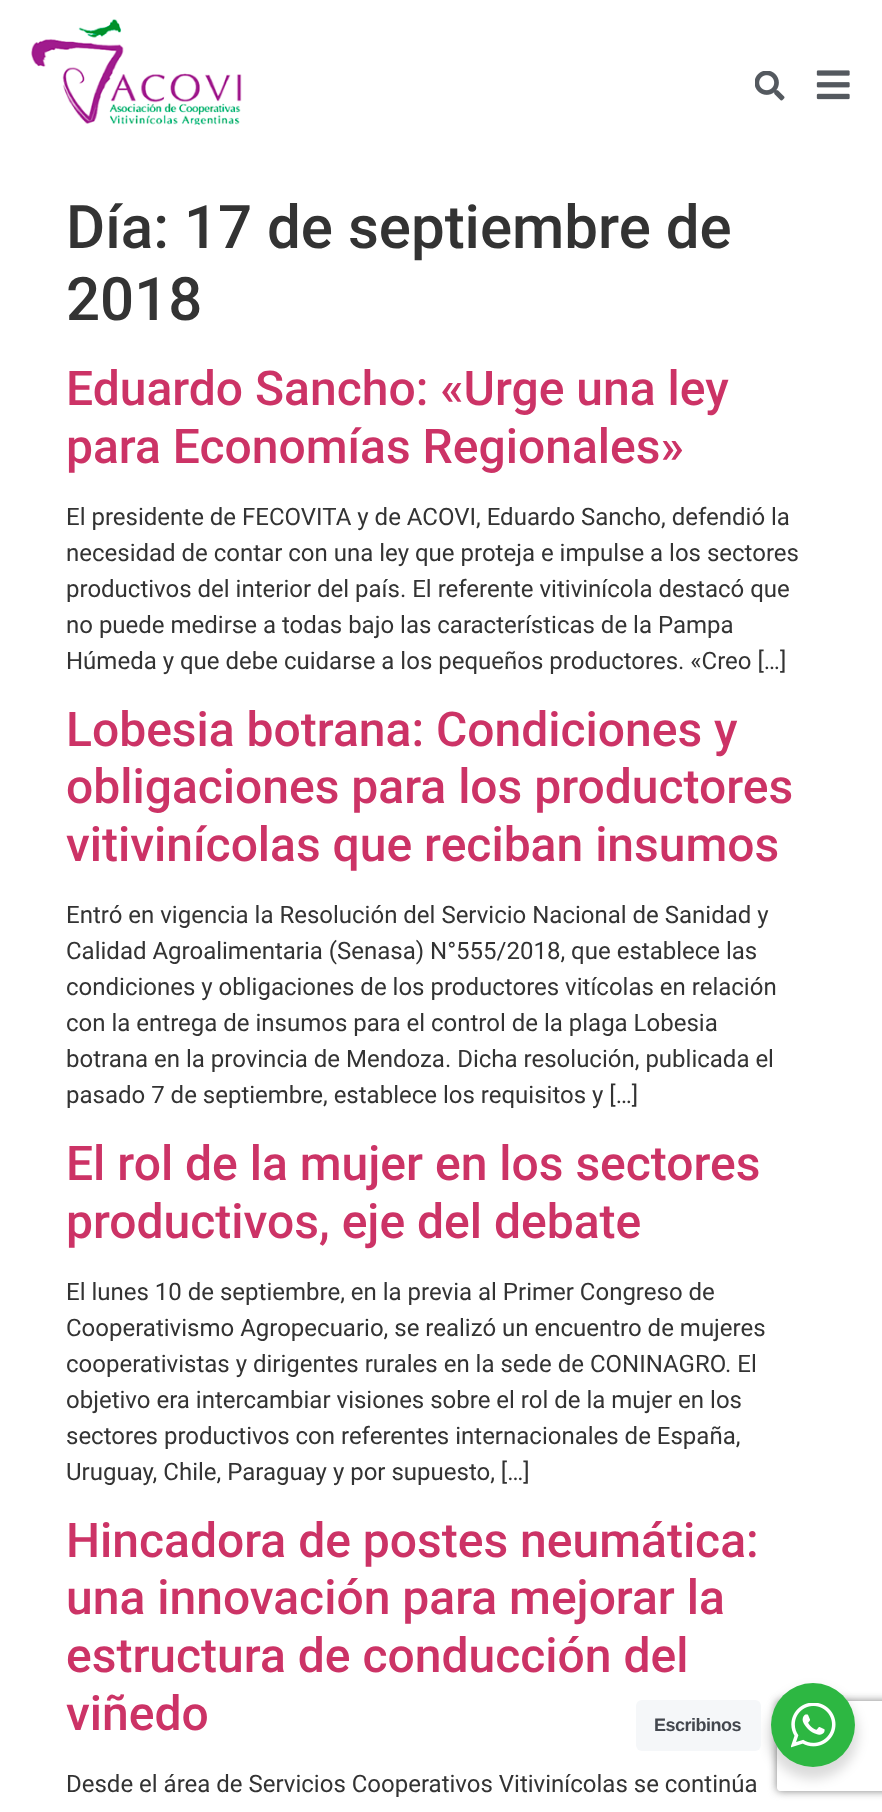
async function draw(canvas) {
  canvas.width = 882;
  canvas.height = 1812;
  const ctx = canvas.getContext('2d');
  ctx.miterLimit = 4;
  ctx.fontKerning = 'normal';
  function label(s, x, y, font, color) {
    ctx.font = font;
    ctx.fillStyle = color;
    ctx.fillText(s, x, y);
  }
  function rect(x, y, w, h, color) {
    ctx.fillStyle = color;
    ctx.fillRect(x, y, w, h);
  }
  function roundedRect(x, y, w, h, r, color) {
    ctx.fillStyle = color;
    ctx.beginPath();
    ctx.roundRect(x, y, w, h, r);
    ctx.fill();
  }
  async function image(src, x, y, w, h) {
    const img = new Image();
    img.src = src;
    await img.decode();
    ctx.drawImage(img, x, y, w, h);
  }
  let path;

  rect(0, 0, 882, 1812, '#fff');
  await image('assets/img1.png', 31, 19, 211, 106);
  await image('assets/img2.png', 755, 71, 30, 30);
  await image('assets/img3.png', 816, 70, 34, 30);
  label('Día: 17 de septiembre de', 66, 248, '500 60px Roboto', '#333');
  label('2018', 66, 320, '500 60px Roboto', '#333');
  label('Eduardo Sancho: «Urge una ley', 66, 405, '500 48px Roboto', '#c36');
  label('para Economías Regionales»', 66, 463, '500 48px Roboto', '#c36');
  label('El presidente de FECOVITA y de ACOVI, Eduardo Sancho, defendió la', 66, 525, '24px Roboto', '#333');
  label('necesidad de contar con una ley que proteja e impulse a los sectores', 66, 561, '24px Roboto', '#333');
  label('productivos del interior del país. El referente vitivinícola destacó que', 66, 597, '24px Roboto', '#333');
  label('no puede medirse a todas bajo las características de la Pampa', 66, 633, '24px Roboto', '#333');
  label('Húmeda y que debe cuidarse a los pequeños productores. «Creo […]', 66, 669, '24px Roboto', '#333');
  label('Lobesia botrana: Condiciones y', 66, 746, '500 48px Roboto', '#c36');
  label('obligaciones para los productores', 66, 803, '500 48px Roboto', '#c36');
  label('vitivinícolas que reciban insumos', 66, 861, '500 48px Roboto', '#c36');
  label('Entró en vigencia la Resolución del Servicio Nacional de Sanidad y', 66, 923, '24px Roboto', '#333');
  label('Calidad Agroalimentaria (Senasa) N°555/2018, que establece las', 66, 959, '24px Roboto', '#333');
  label('condiciones y obligaciones de los productores vitícolas en relación', 66, 995, '24px Roboto', '#333');
  label('con la entrega de insumos para el control de la plaga Lobesia', 66, 1031, '24px Roboto', '#333');
  label('botrana en la provincia de Mendoza. Dicha resolución, publicada el', 66, 1067, '24px Roboto', '#333');
  label('pasado 7 de septiembre, establece los requisitos y […]', 66, 1103, '24px Roboto', '#333');
  label('El rol de la mujer en los sectores', 66, 1180, '500 48px Roboto', '#c36');
  label('productivos, eje del debate', 66, 1238, '500 48px Roboto', '#c36');
  label('El lunes 10 de septiembre, en la previa al Primer Congreso de', 66, 1300, '24px Roboto', '#333');
  label('Cooperativismo Agropecuario, se realizó un encuentro de mujeres', 66, 1336, '24px Roboto', '#333');
  label('cooperativistas y dirigentes rurales en la sede de CONINAGRO. El', 66, 1372, '24px Roboto', '#333');
  label('objetivo era intercambiar visiones sobre el rol de la mujer en los', 66, 1408, '24px Roboto', '#333');
  label('sectores productivos con referentes internacionales de España,', 66, 1444, '24px Roboto', '#333');
  label('Uruguay, Chile, Paraguay y por supuesto, […]', 66, 1480, '24px Roboto', '#333');
  label('Hincadora de postes neumática:', 66, 1557, '500 48px Roboto', '#c36');
  label('una innovación para mejorar la', 66, 1614, '500 48px Roboto', '#c36');
  label('estructura de conducción del', 66, 1672, '500 48px Roboto', '#c36');
  label('viñedo', 66, 1730, '500 48px Roboto', '#c36');
  label('Desde el área de Servicios Cooperativos Vitivinícolas se continúa', 66, 1792, '24px Roboto', '#333');
  ctx.save();
  path = new Path2D('M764 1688H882V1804H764ZM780 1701H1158C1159.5 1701 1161 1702.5 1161 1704V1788C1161 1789.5 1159.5 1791 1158 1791H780C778.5 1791 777 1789.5 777 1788V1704C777 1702.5 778.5 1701 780 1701Z');
  ctx.clip(path, 'evenodd');
  ctx.fillStyle = '#808080';
  ctx.filter = 'blur(4px)';
  ctx.beginPath();
  ctx.roundRect(777, 1701, 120, 90, 3);
  ctx.fill();
  ctx.filter = 'none';
  ctx.restore();
  ctx.fillStyle = '#00000024';
  ctx.filter = 'blur(6px)';
  ctx.beginPath();
  ctx.roundRect(768, 1689, 90, 90, 45);
  ctx.fill();
  ctx.filter = 'none';
  roundedRect(636, 1700, 125, 51, 6, '#f5f7f9');
  ctx.letterSpacing = '-0.5px';
  label('Escribinos', 654, 1731, 'bold 18px Liberation Sans', '#43474e');
  ctx.fillStyle = '#2db742';
  ctx.beginPath();
  ctx.arc(813, 1725, 42, 0, 2 * Math.PI);
  ctx.fill();
  await image('assets/img4.png', 791, 1703, 45, 45);
}

draw(document.querySelector('canvas'));
